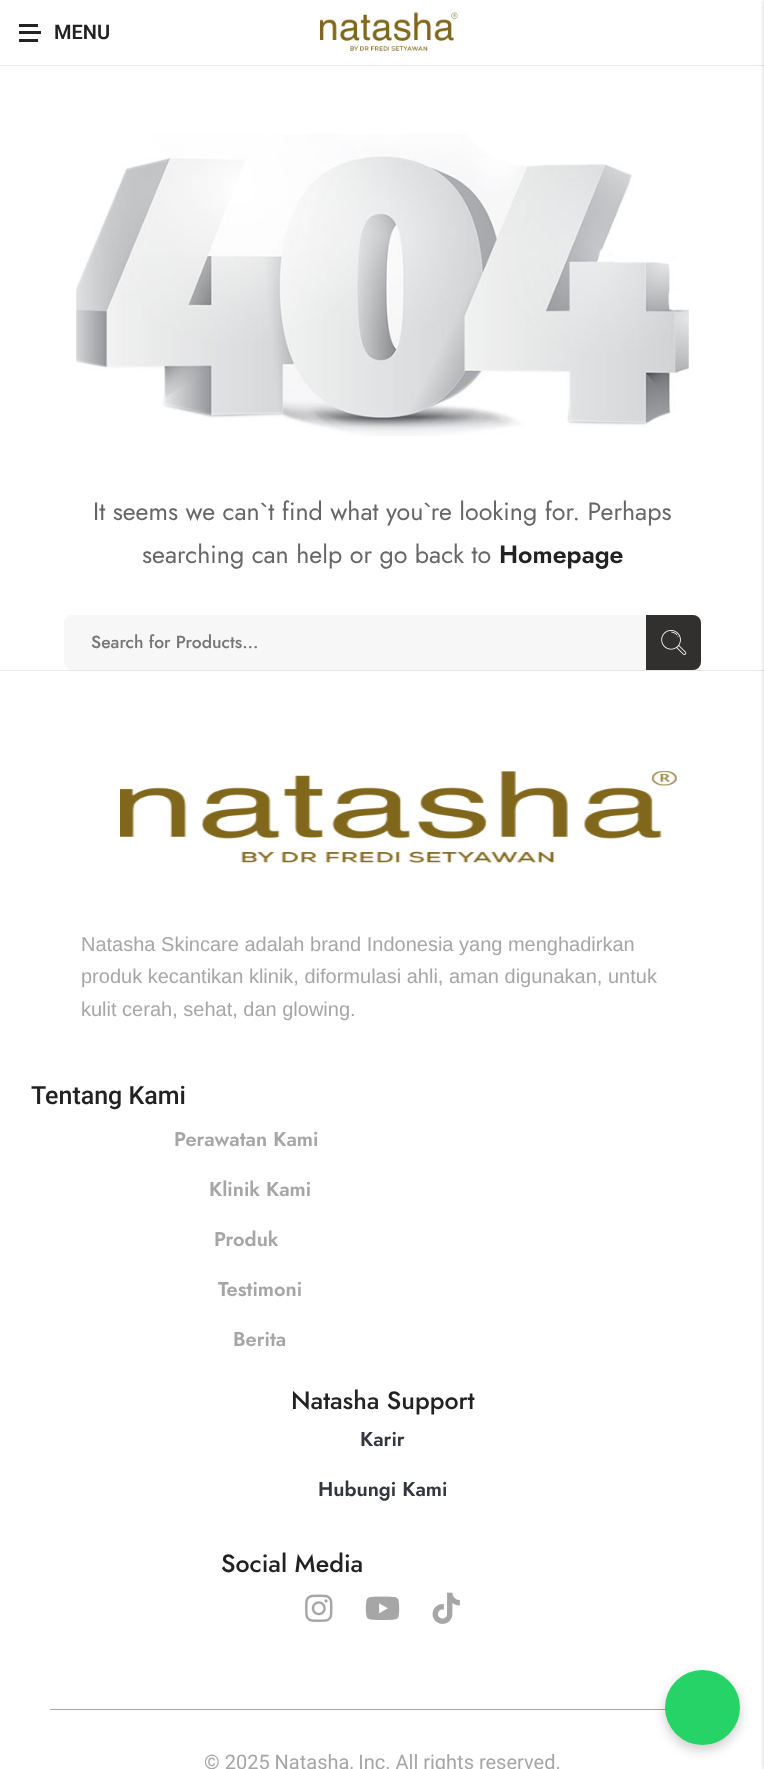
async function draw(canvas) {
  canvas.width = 764;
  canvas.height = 1769;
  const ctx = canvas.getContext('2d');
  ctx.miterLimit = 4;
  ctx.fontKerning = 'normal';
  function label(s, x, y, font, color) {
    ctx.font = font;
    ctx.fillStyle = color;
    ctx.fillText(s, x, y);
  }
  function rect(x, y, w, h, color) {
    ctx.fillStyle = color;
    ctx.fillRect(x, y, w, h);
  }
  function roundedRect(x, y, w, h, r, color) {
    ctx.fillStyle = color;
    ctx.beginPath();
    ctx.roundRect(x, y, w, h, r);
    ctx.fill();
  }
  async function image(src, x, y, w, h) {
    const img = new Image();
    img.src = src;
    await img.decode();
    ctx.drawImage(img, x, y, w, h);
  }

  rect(0, 0, 764, 1769, '#fff');
  rect(0, 65, 764, 1, '#e6e6e6');
  rect(19, 31, 22, 3, '#222');
  rect(19, 24, 19, 3, '#222');
  rect(19, 39, 19, 3, '#222');
  label('MENU', 54, 39, '600 20px Roboto', '#222');
  await image('assets/img1.png', 320, 12, 138, 39);
  await image('assets/img2.png', 76, 134, 613, 302);
  label('It seems we can`t find what you`re looking for. Perhaps', 93, 520, '25px Jost', '#666');
  label('searching can help or go back to', 142, 563, '25px Jost', '#666');
  label('Homepage', 499, 563, '600 25px Jost', '#222');
  roundedRect(64, 615, 637, 55, 8, '#f7f7f7');
  label('Search for Products...', 91, 648, '500 17.5px Jost', '#757575');
  ctx.fillStyle = '#31302e';
  ctx.beginPath();
  ctx.roundRect(646, 615, 55, 55, [0, 8, 8, 0]);
  ctx.fill();
  await image('assets/img3.png', 661, 630, 26, 25);
  rect(0, 670, 764, 1, '#e6e6e6');
  await image('assets/img4.png', 120, 771, 557, 92);
  label('Natasha Skincare adalah brand Indonesia yang menghadirkan', 81, 951, '20px Liberation Sans', '#a6a6a6');
  label('produk kecantikan klinik, diformulasi ahli, aman digunakan, untuk', 81, 983, '20px Liberation Sans', '#a6a6a6');
  label('kulit cerah, sehat, dan glowing.', 81, 1016, '20px Liberation Sans', '#a6a6a6');
  label('Tentang Kami', 31, 1104, '500 25px Roboto', '#222');
  label('Perawatan Kami', 174, 1146, '600 20px Jost', '#a6a6a6');
  label('Klinik Kami', 209, 1196, '600 20px Jost', '#a6a6a6');
  label('Produk', 214, 1246, '600 20px Jost', '#a6a6a6');
  label('Testimoni', 218, 1296, '600 20px Jost', '#a6a6a6');
  label('Berita', 233, 1346, '600 20px Jost', '#a6a6a6');
  label('Natasha Support', 291, 1409, '500 25px Jost', '#222');
  label('Karir', 360, 1446, '600 20px Jost', '#33373d');
  label('Hubungi Kami', 318, 1496, '600 20px Jost', '#33373d');
  label('Social Media', 221, 1572, '500 25px Jost', '#222');
  await image('assets/img5.png', 305, 1594, 28, 28);
  await image('assets/img6.png', 365, 1596, 35, 24);
  await image('assets/img7.png', 432, 1592, 28, 32);
  rect(50, 1709, 616, 1, '#a6a6a6');
  label('© 2025 Natasha, Inc. All rights reserved.', 204, 1769, '20px Roboto', '#a6a6a6');
  ctx.fillStyle = '#00000033';
  ctx.filter = 'blur(6px)';
  ctx.beginPath();
  ctx.roundRect(665, 1675, 75, 75, 37.5);
  ctx.fill();
  ctx.filter = 'none';
  ctx.fillStyle = '#25d366';
  ctx.beginPath();
  ctx.arc(702.5, 1707.5, 37.5, 0, 2 * Math.PI);
  ctx.fill();
  ctx.fillStyle = '#00000033';
  ctx.filter = 'blur(2px)';
  ctx.beginPath();
  ctx.rect(764, 0, 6, 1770);
  ctx.fill();
  ctx.filter = 'none';
}

draw(document.querySelector('canvas'));
